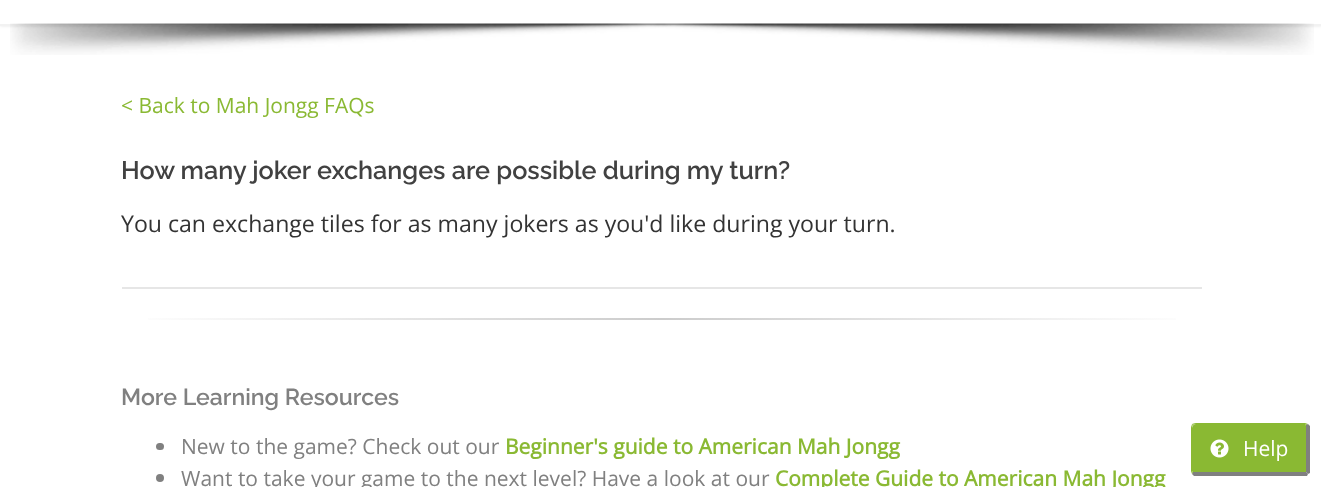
async function draw(canvas) {
  canvas.width = 1321;
  canvas.height = 487;
  const ctx = canvas.getContext('2d');
  ctx.miterLimit = 4;
  ctx.fontKerning = 'normal';
  function label(s, x, y, font, color) {
    ctx.font = font;
    ctx.fillStyle = color;
    ctx.fillText(s, x, y);
  }
  function rect(x, y, w, h, color) {
    ctx.fillStyle = color;
    ctx.fillRect(x, y, w, h);
  }
  function roundedRect(x, y, w, h, r, color) {
    ctx.fillStyle = color;
    ctx.beginPath();
    ctx.roundRect(x, y, w, h, r);
    ctx.fill();
  }
  async function image(src, x, y, w, h) {
    const img = new Image();
    img.src = src;
    await img.decode();
    ctx.drawImage(img, x, y, w, h);
  }
  let gradient, path;

  rect(0, 0, 1321, 487, '#fff');
  ctx.fillStyle = '#0000001a';
  ctx.filter = 'blur(1.5px)';
  ctx.beginPath();
  ctx.rect(0, -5, 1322, 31);
  ctx.fill();
  ctx.filter = 'none';
  rect(0, 0, 1321, 24, '#fff');
  rect(0, 24, 1321, 2, '#f2f2f2');
  await image('assets/img1.png', 10, 23, 1304, 32);
  label('< Back to Mah Jongg FAQs', 121, 113, '21px Open Sans', '#8ab933');
  rect(122, 287, 1080, 2, '#e6e6e6');
  label('How many joker exchanges are possible during my turn?', 121, 179, '600 25.2px Raleway', '#414141');
  label('You can exchange tiles for as many jokers as you\'d like during your turn.', 121, 232, '23.1px Open Sans', '#333');
  gradient = ctx.createLinearGradient(122, 319, 1202, 319);
  gradient.addColorStop(0, '#fff');
  gradient.addColorStop(0.5, '#ccc');
  gradient.addColorStop(1, '#fff');
  ctx.fillStyle = gradient;
  ctx.fillRect(148, 318, 1028, 2);
  label('More Learning Resources', 121, 405, '600 23.1px Raleway', '#808080');
  roundedRect(156, 443, 8, 7, 3.5, '#808080');
  label('New to the game? Check out our', 181, 454, '21px Open Sans', '#808080');
  label('Beginner\'s guide to American Mah Jongg', 505, 454, 'bold 21px Open Sans', '#8ab933');
  ctx.fillStyle = '#808080';
  ctx.beginPath();
  ctx.arc(160, 478, 4, 0, 2 * Math.PI);
  ctx.fill();
  label('Want to take your game to the next level? Have a look at our', 181, 486, '21px Open Sans', '#808080');
  label('Complete Guide to American Mah Jongg', 775, 486, 'bold 21px Open Sans', '#8ab933');
  path = new Path2D('M1196 424H1305C1306 424 1306 426 1306 428V471C1306 472 1306 472 1305 472H1196C1194 472 1192 472 1192 471V428C1192 426 1194 424 1196 424Z');
  ctx.fill(path);
  path = new Path2D('M1196 423C1194 423 1193 424 1192 424L1193 425C1194 424 1195 424 1196 424H1305L1306 425L1308 424L1305 423Z');
  ctx.fill(path);
  ctx.fillStyle = '#808080';
  path = new Path2D('M1310 473L1308 474L1306 472V425L1308 424L1310 426Z');
  ctx.fill(path);
  path = new Path2D('M1194 476L1192 474L1193 472H1306L1308 474L1307 476Z');
  ctx.fill(path);
  ctx.fillStyle = '#8ab933';
  path = new Path2D('M1191 428V471L1192 474L1193 472L1192 471V428C1192 427 1192 426 1193 425L1192 424C1192 425 1191 426 1191 428Z');
  ctx.fill(path);
  await image('assets/img2.png', 1210, 439, 19, 19);
  label('Help', 1243, 456, '21px Open Sans', '#fff');
}

draw(document.querySelector('canvas'));
